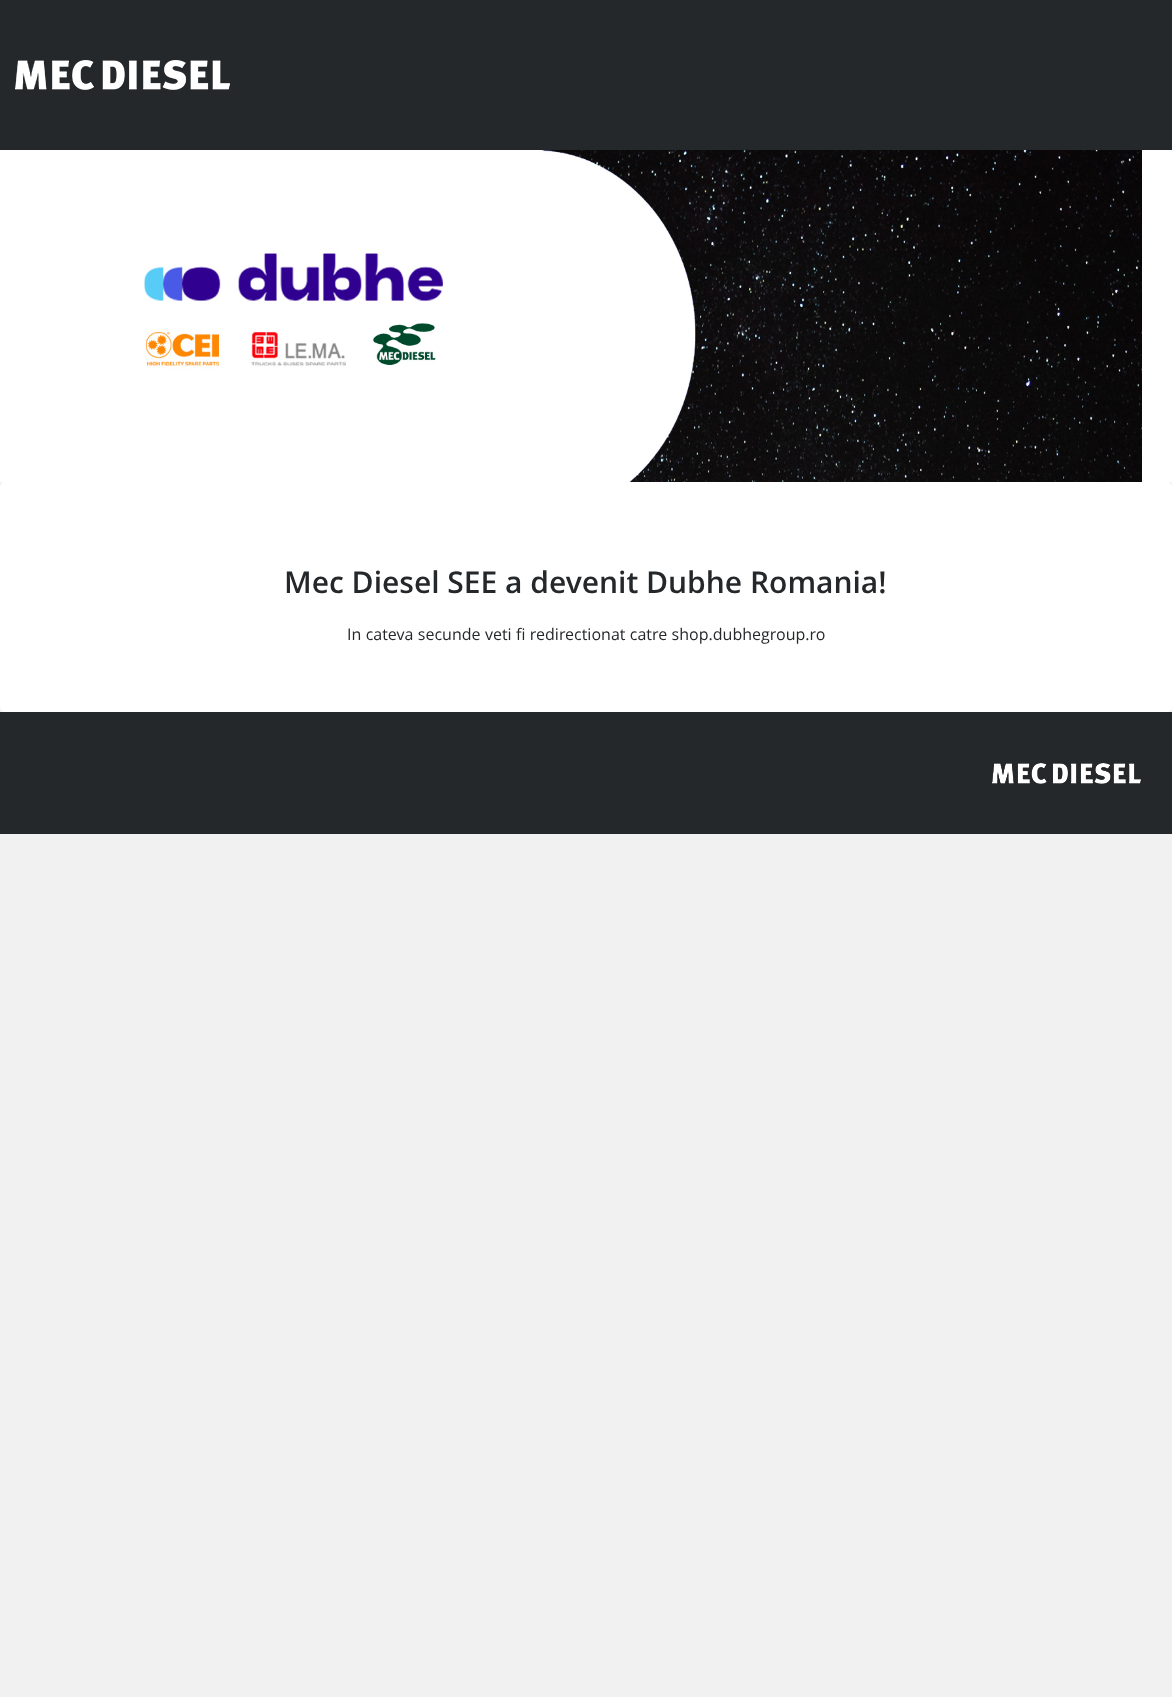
async function draw(canvas) {
  canvas.width = 1172;
  canvas.height = 1697;
  const ctx = canvas.getContext('2d');
  ctx.miterLimit = 4;
  ctx.fontKerning = 'normal';
  function label(s, x, y, font, color) {
    ctx.font = font;
    ctx.fillStyle = color;
    ctx.fillText(s, x, y);
  }
  function rect(x, y, w, h, color) {
    ctx.fillStyle = color;
    ctx.fillRect(x, y, w, h);
  }
  function roundedRect(x, y, w, h, r, color) {
    ctx.fillStyle = color;
    ctx.beginPath();
    ctx.roundRect(x, y, w, h, r);
    ctx.fill();
  }
  async function image(src, x, y, w, h) {
    const img = new Image();
    img.src = src;
    await img.decode();
    ctx.drawImage(img, x, y, w, h);
  }

  rect(0, 0, 1172, 1697, '#f1f1f1');
  rect(0, 0, 1172, 150, '#25282a');
  await image('assets/img1.png', 15, 60, 215, 30);
  rect(0, 150, 1172, 332, '#fff');
  await image('assets/img2.png', 144, 150, 998, 332);
  roundedRect(0, 482, 1172, 230, 5, '#fff');
  label('Mec Diesel SEE a devenit Dubhe Romania!', 284, 593, '600 30px Open Sans', '#25282a');
  ctx.wordSpacing = '0.25px';
  label('In cateva secunde veti fi redirectionat catre shop.dubhegroup.ro', 347, 640, '16px Open Sans', '#25282a');
  rect(0, 712, 1172, 122, '#25282a');
  await image('assets/img3.png', 992, 763, 149, 21);
}

draw(document.querySelector('canvas'));
